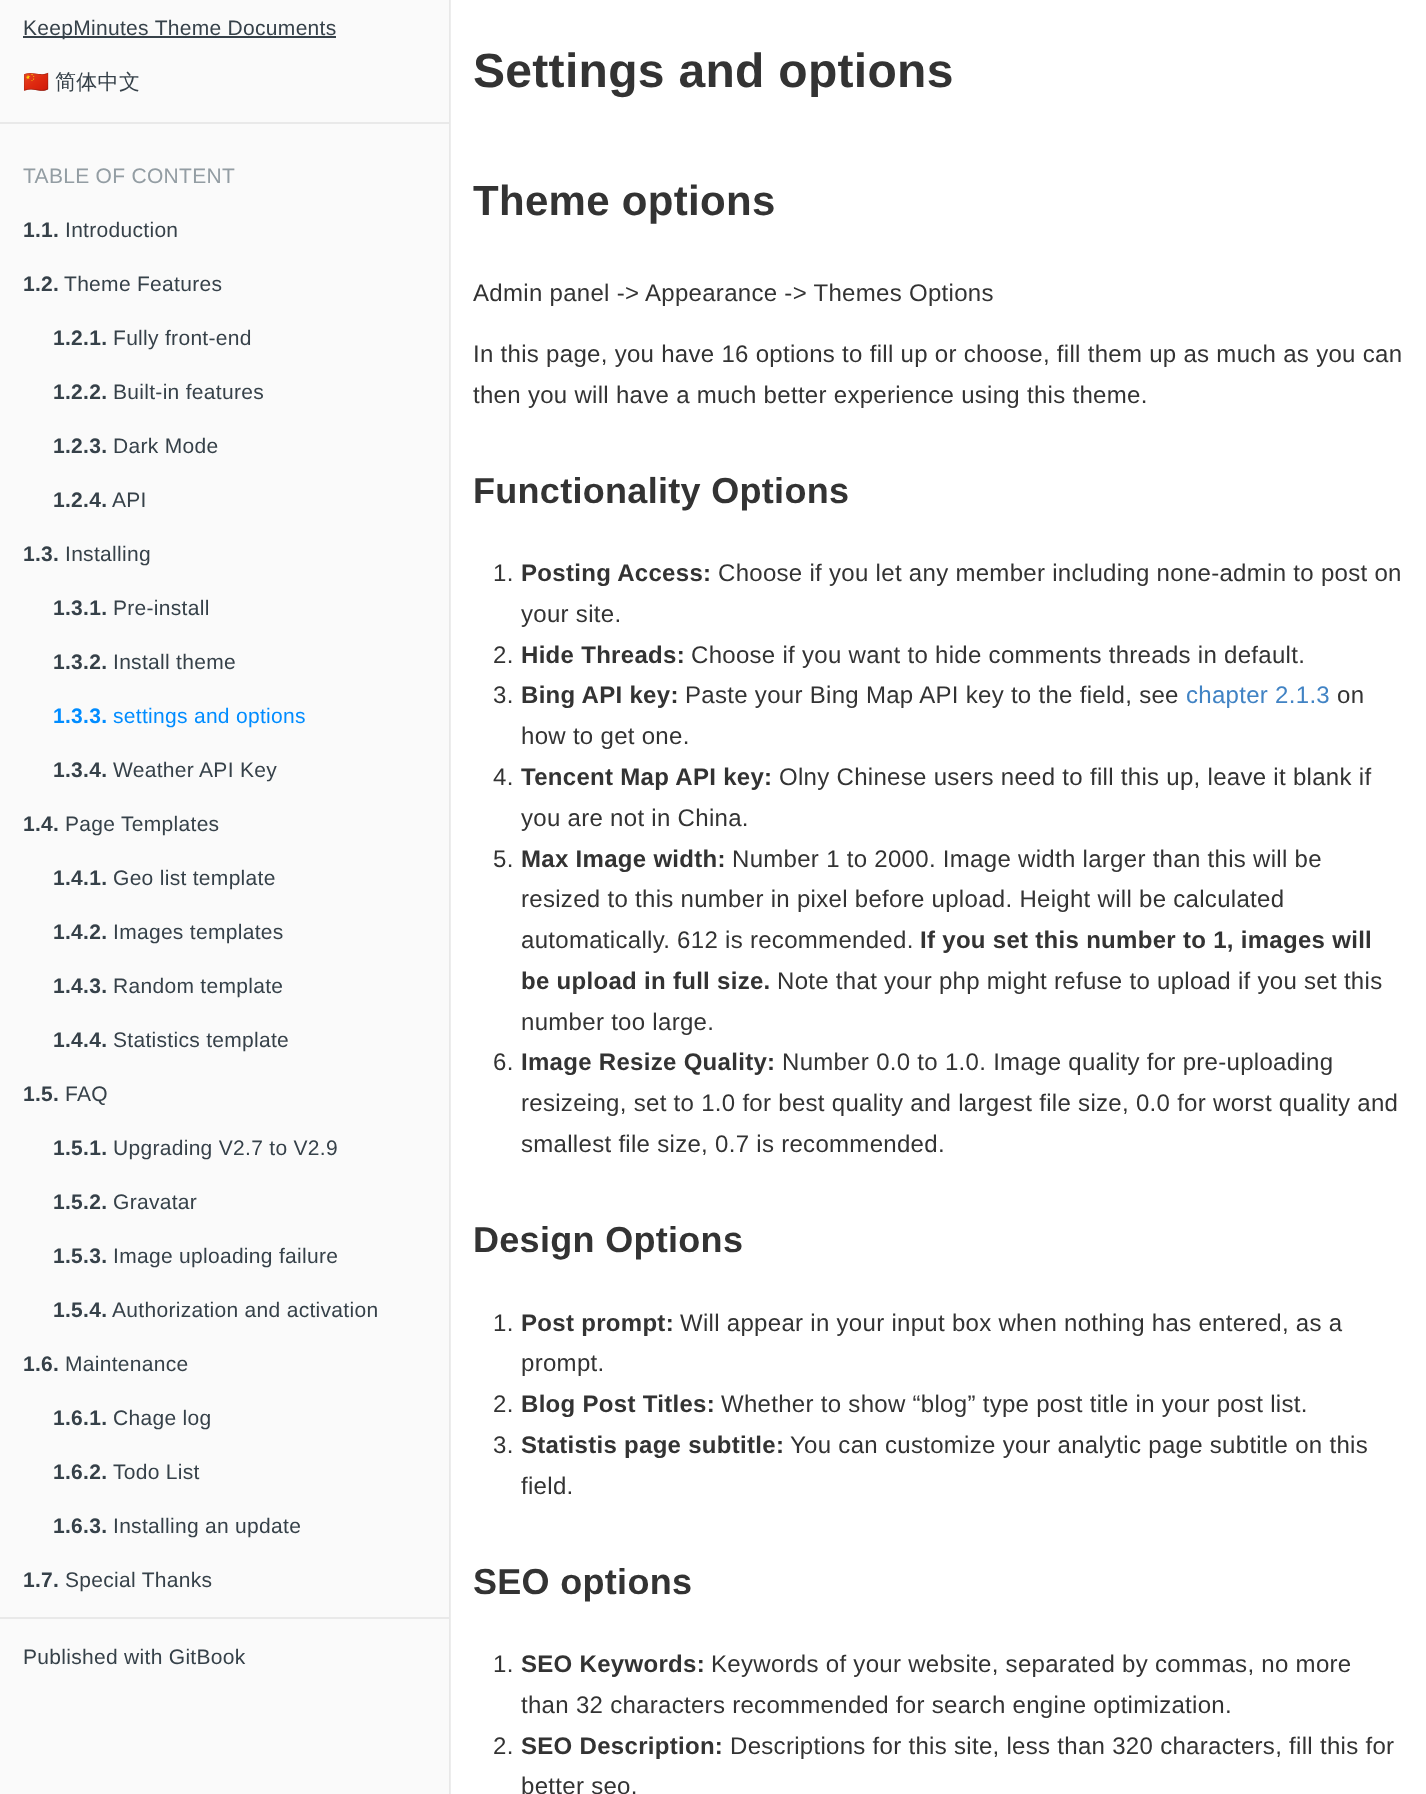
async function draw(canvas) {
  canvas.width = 1426;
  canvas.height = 1794;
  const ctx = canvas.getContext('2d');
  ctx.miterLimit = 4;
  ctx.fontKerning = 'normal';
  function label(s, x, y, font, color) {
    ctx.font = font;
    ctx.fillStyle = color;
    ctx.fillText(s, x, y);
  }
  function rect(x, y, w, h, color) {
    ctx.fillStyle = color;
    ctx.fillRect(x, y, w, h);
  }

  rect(0, 0, 1426, 1794, '#fff');
  rect(450, 0, 1, 1794, '#ededed');
  rect(0, 0, 449, 1794, '#fafafa');
  rect(449, 0, 1, 1794, '#e8e8e8');
  rect(23, 36, 313, 2, '#364149');
  ctx.letterSpacing = '0.3px';
  label('KeepMinutes Theme Documents', 23, 35, '21px Liberation Sans', '#364149');
  label('🇨🇳', 23, 89, '21px Noto Color Emoji', '#364149');
  label('简体中文', 55, 89, '500 21px WenQuanYi Zen Hei', '#364149');
  rect(0, 122, 449, 2, '#e9e9e9');
  label('TABLE OF CONTENT', 23, 183, '21px Liberation Sans', '#939da3');
  label('1.1.', 23, 237, 'bold 21px Liberation Sans', '#364149');
  label('Introduction', 65, 237, '21px Liberation Sans', '#364149');
  label('1.2.', 23, 291, 'bold 21px Liberation Sans', '#364149');
  label('Theme Features', 64, 291, '21px Liberation Sans', '#364149');
  label('1.2.1.', 53, 345, 'bold 21px Liberation Sans', '#364149');
  label('Fully front-end', 113, 345, '21px Liberation Sans', '#364149');
  label('1.2.2.', 53, 399, 'bold 21px Liberation Sans', '#364149');
  label('Built-in features', 113, 399, '21px Liberation Sans', '#364149');
  label('1.2.3.', 53, 453, 'bold 21px Liberation Sans', '#364149');
  label('Dark Mode', 113, 453, '21px Liberation Sans', '#364149');
  label('1.2.4.', 53, 507, 'bold 21px Liberation Sans', '#364149');
  label('API', 112, 507, '21px Liberation Sans', '#364149');
  label('1.3.', 23, 561, 'bold 21px Liberation Sans', '#364149');
  label('Installing', 65, 561, '21px Liberation Sans', '#364149');
  label('1.3.1.', 53, 615, 'bold 21px Liberation Sans', '#364149');
  label('Pre-install', 113, 615, '21px Liberation Sans', '#364149');
  label('1.3.2.', 53, 669, 'bold 21px Liberation Sans', '#364149');
  label('Install theme', 113, 669, '21px Liberation Sans', '#364149');
  label('1.3.3.', 53, 723, 'bold 21px Liberation Sans', '#008cff');
  label('settings and options', 113, 723, '21px Liberation Sans', '#008cff');
  label('1.3.4.', 53, 777, 'bold 21px Liberation Sans', '#364149');
  label('Weather API Key', 113, 777, '21px Liberation Sans', '#364149');
  label('1.4.', 23, 831, 'bold 21px Liberation Sans', '#364149');
  label('Page Templates', 65, 831, '21px Liberation Sans', '#364149');
  label('1.4.1.', 53, 885, 'bold 21px Liberation Sans', '#364149');
  label('Geo list template', 113, 885, '21px Liberation Sans', '#364149');
  label('1.4.2.', 53, 939, 'bold 21px Liberation Sans', '#364149');
  label('Images templates', 113, 939, '21px Liberation Sans', '#364149');
  label('1.4.3.', 53, 993, 'bold 21px Liberation Sans', '#364149');
  label('Random template', 113, 993, '21px Liberation Sans', '#364149');
  label('1.4.4.', 53, 1047, 'bold 21px Liberation Sans', '#364149');
  label('Statistics template', 113, 1047, '21px Liberation Sans', '#364149');
  label('1.5.', 23, 1101, 'bold 21px Liberation Sans', '#364149');
  label('FAQ', 65, 1101, '21px Liberation Sans', '#364149');
  label('1.5.1.', 53, 1155, 'bold 21px Liberation Sans', '#364149');
  label('Upgrading V2.7 to V2.9', 113, 1155, '21px Liberation Sans', '#364149');
  label('1.5.2.', 53, 1209, 'bold 21px Liberation Sans', '#364149');
  label('Gravatar', 113, 1209, '21px Liberation Sans', '#364149');
  label('1.5.3.', 53, 1263, 'bold 21px Liberation Sans', '#364149');
  label('Image uploading failure', 113, 1263, '21px Liberation Sans', '#364149');
  label('1.5.4.', 53, 1317, 'bold 21px Liberation Sans', '#364149');
  label('Authorization and activation', 112, 1317, '21px Liberation Sans', '#364149');
  label('1.6.', 23, 1371, 'bold 21px Liberation Sans', '#364149');
  label('Maintenance', 65, 1371, '21px Liberation Sans', '#364149');
  label('1.6.1.', 53, 1425, 'bold 21px Liberation Sans', '#364149');
  label('Chage log', 113, 1425, '21px Liberation Sans', '#364149');
  label('1.6.2.', 53, 1479, 'bold 21px Liberation Sans', '#364149');
  label('Todo List', 113, 1479, '21px Liberation Sans', '#364149');
  label('1.6.3.', 53, 1533, 'bold 21px Liberation Sans', '#364149');
  label('Installing an update', 113, 1533, '21px Liberation Sans', '#364149');
  label('1.7.', 23, 1587, 'bold 21px Liberation Sans', '#364149');
  label('Special Thanks', 65, 1587, '21px Liberation Sans', '#364149');
  rect(0, 1617, 449, 2, '#e9e9e9');
  label('Published with GitBook', 23, 1664, '21px Liberation Sans', '#364149');
  label('Settings and options', 473, 87, 'bold 48px Liberation Sans', '#333');
  label('Theme options', 473, 215, 'bold 42px Liberation Sans', '#333');
  label('Admin panel -> Appearance -> Themes Options', 473, 301, '24px Liberation Sans', '#333');
  label('In this page, you have 16 options to fill up or choose, fill them up as much as you can', 473, 362, '24px Liberation Sans', '#333');
  label('then you will have a much better experience using this theme.', 473, 403, '24px Liberation Sans', '#333');
  label('Functionality Options', 473, 503, 'bold 36px Liberation Sans', '#333');
  label('1.', 493, 581, '24px Liberation Sans', '#333');
  label('Posting Access:', 521, 581, 'bold 24px Liberation Sans', '#333');
  label('Choose if you let any member including none-admin to post on', 718, 581, '24px Liberation Sans', '#333');
  label('your site.', 521, 622, '24px Liberation Sans', '#333');
  label('2.', 493, 663, '24px Liberation Sans', '#333');
  label('Hide Threads:', 521, 663, 'bold 24px Liberation Sans', '#333');
  label('Choose if you want to hide comments threads in default.', 691, 663, '24px Liberation Sans', '#333');
  label('3.', 493, 703, '24px Liberation Sans', '#333');
  label('Bing API key:', 521, 703, 'bold 24px Liberation Sans', '#333');
  label('Paste your Bing Map API key to the field, see', 685, 703, '24px Liberation Sans', '#333');
  label('chapter 2.1.3', 1186, 703, '24px Liberation Sans', '#4183c4');
  label('on', 1337, 703, '24px Liberation Sans', '#333');
  label('how to get one.', 521, 744, '24px Liberation Sans', '#333');
  label('4.', 493, 785, '24px Liberation Sans', '#333');
  label('Tencent Map API key:', 521, 785, 'bold 24px Liberation Sans', '#333');
  label('Olny Chinese users need to fill this up, leave it blank if', 779, 785, '24px Liberation Sans', '#333');
  label('you are not in China.', 521, 826, '24px Liberation Sans', '#333');
  label('5.', 493, 867, '24px Liberation Sans', '#333');
  label('Max Image width:', 521, 867, 'bold 24px Liberation Sans', '#333');
  label('Number 1 to 2000. Image width larger than this will be', 732, 867, '24px Liberation Sans', '#333');
  label('resized to this number in pixel before upload. Height will be calculated', 521, 907, '24px Liberation Sans', '#333');
  label('automatically. 612 is recommended.', 521, 948, '24px Liberation Sans', '#333');
  label('If you set this number to 1, images will', 920, 948, 'bold 24px Liberation Sans', '#333');
  label('be upload in full size.', 521, 989, 'bold 24px Liberation Sans', '#333');
  label('Note that your php might refuse to upload if you set this', 777, 989, '24px Liberation Sans', '#333');
  label('number too large.', 521, 1030, '24px Liberation Sans', '#333');
  label('6.', 493, 1070, '24px Liberation Sans', '#333');
  label('Image Resize Quality:', 521, 1070, 'bold 24px Liberation Sans', '#333');
  label('Number 0.0 to 1.0. Image quality for pre-uploading', 782, 1070, '24px Liberation Sans', '#333');
  label('resizeing, set to 1.0 for best quality and largest file size, 0.0 for worst quality and', 521, 1111, '24px Liberation Sans', '#333');
  label('smallest file size, 0.7 is recommended.', 521, 1152, '24px Liberation Sans', '#333');
  label('Design Options', 473, 1252, 'bold 36px Liberation Sans', '#333');
  label('1.', 493, 1331, '24px Liberation Sans', '#333');
  label('Post prompt:', 521, 1331, 'bold 24px Liberation Sans', '#333');
  label('Will appear in your input box when nothing has entered, as a', 680, 1331, '24px Liberation Sans', '#333');
  label('prompt.', 521, 1371, '24px Liberation Sans', '#333');
  label('2.', 493, 1412, '24px Liberation Sans', '#333');
  label('Blog Post Titles:', 521, 1412, 'bold 24px Liberation Sans', '#333');
  label('Whether to show “blog” type post title in your post list.', 721, 1412, '24px Liberation Sans', '#333');
  label('3.', 493, 1453, '24px Liberation Sans', '#333');
  label('Statistis page subtitle:', 521, 1453, 'bold 24px Liberation Sans', '#333');
  label('You can customize your analytic page subtitle on this', 790, 1453, '24px Liberation Sans', '#333');
  label('field.', 521, 1494, '24px Liberation Sans', '#333');
  label('SEO options', 473, 1594, 'bold 36px Liberation Sans', '#333');
  label('1.', 493, 1672, '24px Liberation Sans', '#333');
  label('SEO Keywords:', 521, 1672, 'bold 24px Liberation Sans', '#333');
  label('Keywords of your website, separated by commas, no more', 711, 1672, '24px Liberation Sans', '#333');
  label('than 32 characters recommended for search engine optimization.', 521, 1713, '24px Liberation Sans', '#333');
  label('2.', 493, 1754, '24px Liberation Sans', '#333');
  label('SEO Description:', 521, 1754, 'bold 24px Liberation Sans', '#333');
  label('Descriptions for this site, less than 320 characters, fill this for', 730, 1754, '24px Liberation Sans', '#333');
  label('better seo.', 521, 1794, '24px Liberation Sans', '#333');
}

draw(document.querySelector('canvas'));
